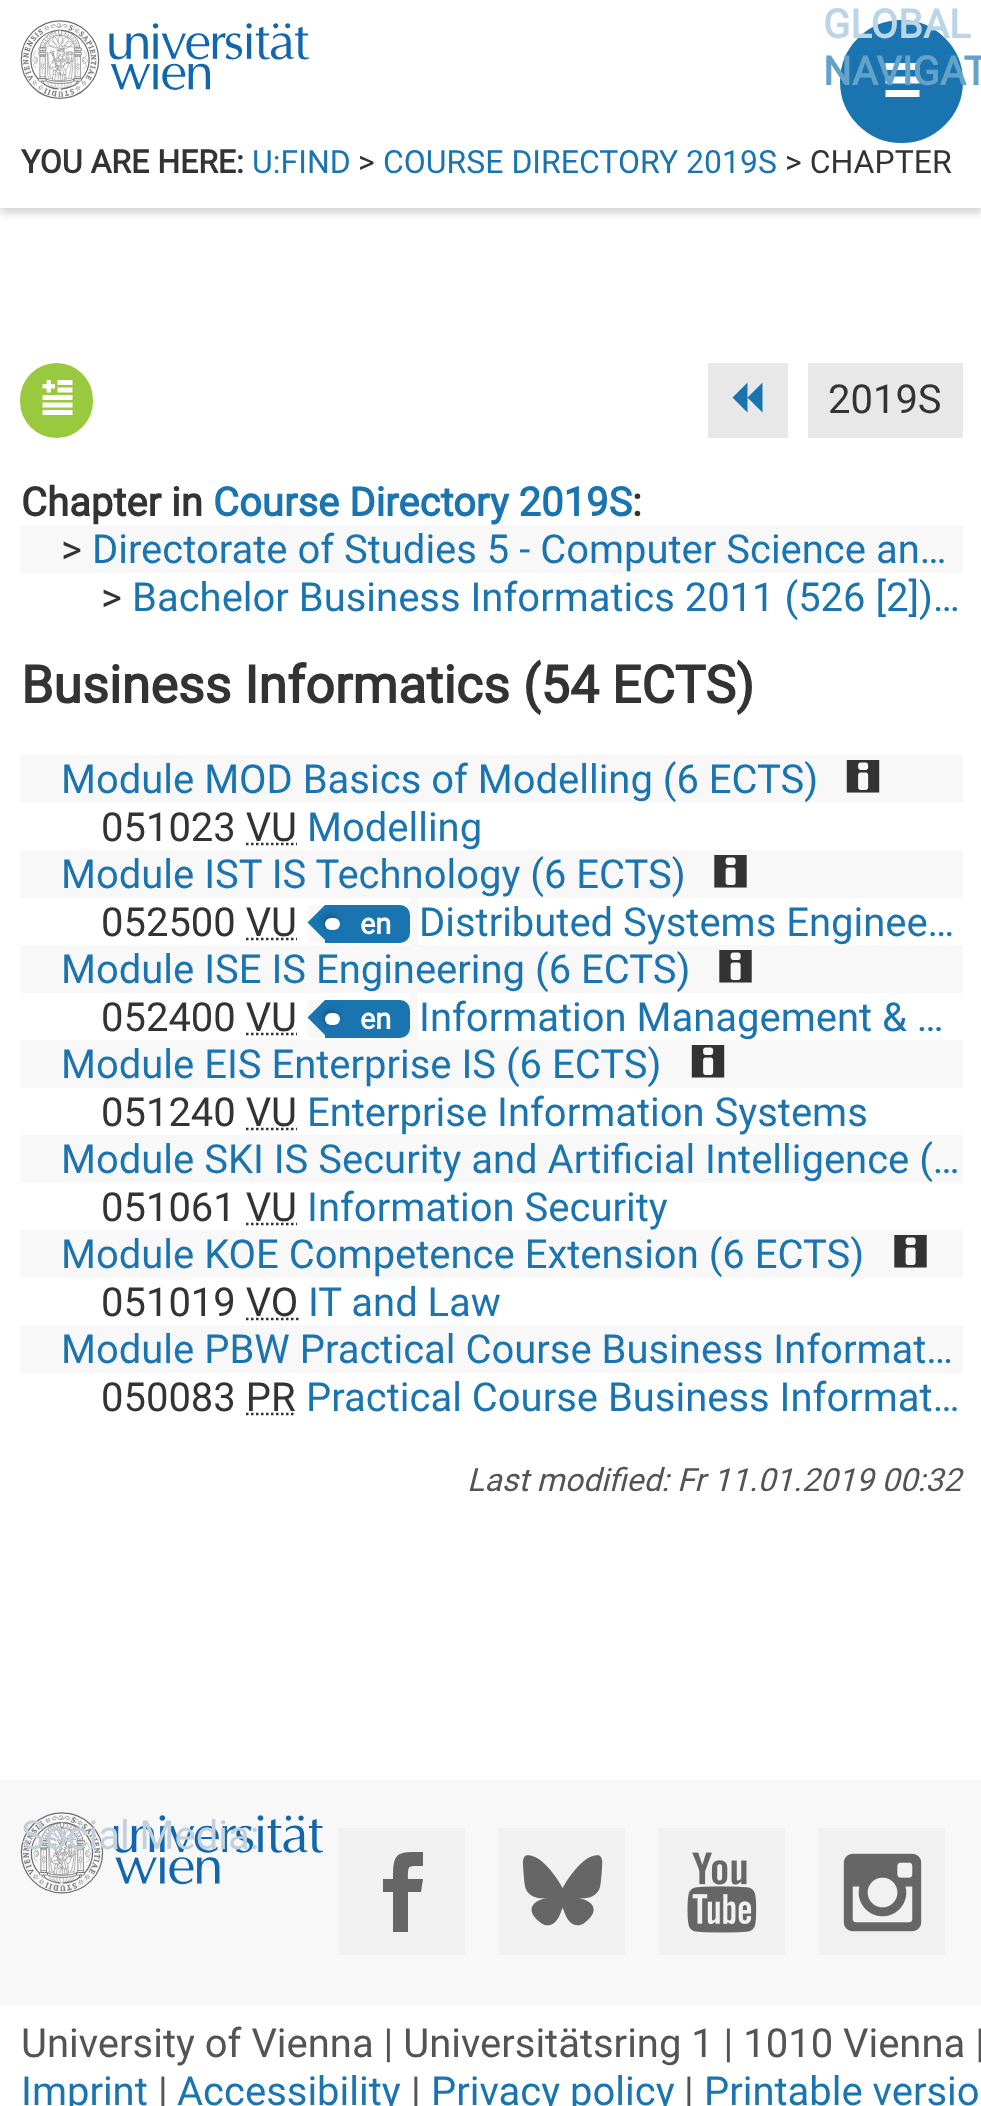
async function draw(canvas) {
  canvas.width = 981;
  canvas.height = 2106;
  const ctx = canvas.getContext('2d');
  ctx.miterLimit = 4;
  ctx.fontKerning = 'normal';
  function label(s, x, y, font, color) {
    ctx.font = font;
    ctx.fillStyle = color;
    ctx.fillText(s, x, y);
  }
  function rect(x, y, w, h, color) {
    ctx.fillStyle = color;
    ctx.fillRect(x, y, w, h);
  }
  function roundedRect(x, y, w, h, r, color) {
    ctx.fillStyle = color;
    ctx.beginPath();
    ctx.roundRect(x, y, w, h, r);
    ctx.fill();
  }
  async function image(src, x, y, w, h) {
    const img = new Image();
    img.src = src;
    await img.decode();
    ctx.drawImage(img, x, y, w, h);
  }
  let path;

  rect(0, 0, 981, 2106, '#fff');
  ctx.fillStyle = '#0000002e';
  ctx.filter = 'blur(4px)';
  ctx.beginPath();
  ctx.rect(0, 5, 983, 208);
  ctx.fill();
  ctx.filter = 'none';
  rect(0, 0, 981, 208, '#fff');
  await image('assets/img1.png', 20, 20, 289, 79);
  ctx.fillStyle = '#1a74b0';
  ctx.beginPath();
  ctx.arc(901.5, 81.5, 71.5, 0, 2 * Math.PI);
  ctx.fill();
  ctx.strokeStyle = '#fff';
  ctx.lineWidth = 20;
  ctx.stroke();
  ctx.fillStyle = '#fff';
  path = new Path2D('M885.5 70V63H919.5V70ZM885.5 83.5V76.5H919.5V83.5ZM885.5 97V90H919.5V97Z');
  ctx.fill(path);
  label('GLOBAL', 823, 38, 'bold 40px Roboto', '#b9d5e7');
  label('NAVIGAT', 823, 85, 'bold 40px Roboto', '#65a2ca');
  label('YOU ARE HERE:', 21, 173, 'bold 32px Roboto', '#333');
  label('U:FIND', 252, 173, '32px Roboto', '#1a74b0');
  label('>', 358, 173, '32px Roboto', '#333');
  label('COURSE DIRECTORY 2019S', 383, 173, '32px Roboto', '#1a74b0');
  label('> CHAPTER', 785, 173, '32px Roboto', '#333');
  roundedRect(20, 363, 73, 75, 36.5, '#99c93e');
  await image('assets/img2.png', 42, 380, 31, 35);
  rect(708, 363, 80, 75, '#e8e8e8');
  ctx.fillStyle = '#1a74b0';
  path = new Path2D('M747.5 382.5V412.5L732.5 397.5ZM762.5 382.5V412.5L747.5 397.5Z');
  ctx.fill(path);
  rect(808, 363, 155, 75, '#e8e8e8');
  label('2019S', 828, 413, '40px Roboto', '#333');
  label('Chapter in', 21, 516, 'bold 40px Roboto', '#333');
  label('Course Directory 2019S', 213, 516, 'bold 40px Roboto', '#1a74b0');
  label(':', 632, 516, 'bold 40px Roboto', '#333');
  rect(20, 525, 943, 48, '#f8f8f8');
  label('>', 61, 563, '40px Roboto', '#333');
  label('Directorate of Studies 5 - Computer Science an…', 92, 563, '40px Roboto', '#1a74b0');
  label('>', 101, 611, '40px Roboto', '#333');
  label('Bachelor Business Informatics 2011 (526 [2])…', 132, 611, '40px Roboto', '#1a74b0');
  label('Business Informatics (54 ECTS)', 21, 703, 'bold 52px Roboto', '#333');
  rect(20, 755, 943, 48, '#f8f8f8');
  label('Module MOD Basics of Modelling (6 ECTS)', 61, 793, '40px Roboto', '#1a74b0');
  await image('assets/img3.png', 846, 760, 34, 33);
  label('051023 VU', 101, 841, '40px Roboto', '#333');
  label('Modelling', 307, 841, '40px Roboto', '#1a74b0');
  path = new Path2D('M246 844H297');
  ctx.strokeStyle = '#333';
  ctx.lineWidth = 2.5;
  ctx.setLineDash([2.5, 2.5]);
  ctx.stroke(path);
  rect(20, 850, 943, 48, '#f8f8f8');
  label('Module IST IS Technology (6 ECTS)', 61, 888, '40px Roboto', '#1a74b0');
  await image('assets/img4.png', 714, 855, 33, 33);
  label('052500 VU', 101, 936, '40px Roboto', '#333');
  rect(308, 905, 102, 38, '#f8f8f8');
  rect(410, 898, 8, 47, '#f8f8f8');
  ctx.fillStyle = '#1a74b0';
  path = new Path2D('M325 905V940L307.5 922.5Z');
  ctx.fill(path);
  ctx.beginPath();
  ctx.roundRect(325, 905, 85, 38, [0, 10, 10, 0]);
  ctx.fill();
  ctx.fillStyle = '#145683';
  ctx.filter = 'blur(3px)';
  ctx.beginPath();
  ctx.roundRect(323, 915, 15, 13, 6.5);
  ctx.fill();
  ctx.filter = 'none';
  roundedRect(325, 918, 15, 12, 6, '#fff');
  label('en', 360, 934, 'bold 29px Roboto', '#fff');
  label('Distributed Systems Enginee…', 419, 936, '40px Roboto', '#1a74b0');
  path = new Path2D('M246 939H297');
  ctx.stroke(path);
  rect(20, 945, 943, 48, '#f8f8f8');
  label('Module ISE IS Engineering (6 ECTS)', 61, 983, '40px Roboto', '#1a74b0');
  await image('assets/img4.png', 719, 950, 33, 33);
  label('052400 VU', 101, 1031, '40px Roboto', '#333');
  rect(308, 1000, 102, 38, '#f8f8f8');
  rect(410, 993, 8, 47, '#f8f8f8');
  ctx.fillStyle = '#1a74b0';
  path = new Path2D('M325 1000V1035L307.5 1017.5Z');
  ctx.fill(path);
  ctx.beginPath();
  ctx.roundRect(325, 1000, 85, 38, [0, 10, 10, 0]);
  ctx.fill();
  ctx.fillStyle = '#145683';
  ctx.filter = 'blur(3px)';
  ctx.beginPath();
  ctx.roundRect(323, 1010, 15, 13, 6.5);
  ctx.fill();
  ctx.filter = 'none';
  roundedRect(325, 1013, 15, 12, 6, '#fff');
  label('en', 360, 1029, 'bold 29px Roboto', '#fff');
  label('Information Management & …', 419, 1031, '40px Roboto', '#1a74b0');
  path = new Path2D('M246 1034H297');
  ctx.stroke(path);
  rect(20, 1040, 943, 48, '#f8f8f8');
  label('Module EIS Enterprise IS (6 ECTS)', 61, 1078, '40px Roboto', '#1a74b0');
  await image('assets/img3.png', 691, 1045, 34, 33);
  label('051240 VU', 101, 1126, '40px Roboto', '#333');
  label('Enterprise Information Systems', 307, 1126, '40px Roboto', '#1a74b0');
  path = new Path2D('M246 1129H297');
  ctx.stroke(path);
  rect(20, 1135, 943, 48, '#f8f8f8');
  label('Module SKI IS Security and Artificial Intelligence (…', 61, 1173, '40px Roboto', '#1a74b0');
  label('051061 VU', 101, 1221, '40px Roboto', '#333');
  label('Information Security', 307, 1221, '40px Roboto', '#1a74b0');
  path = new Path2D('M246 1224H297');
  ctx.stroke(path);
  rect(20, 1230, 943, 48, '#f8f8f8');
  label('Module KOE Competence Extension (6 ECTS)', 61, 1268, '40px Roboto', '#1a74b0');
  await image('assets/img4.png', 894, 1235, 33, 33);
  label('051019 VO', 101, 1316, '40px Roboto', '#333');
  label('IT and Law', 308, 1316, '40px Roboto', '#1a74b0');
  path = new Path2D('M246 1319H298.5');
  ctx.stroke(path);
  rect(20, 1325, 943, 48, '#f8f8f8');
  label('Module PBW Practical Course Business Informat…', 61, 1363, '40px Roboto', '#1a74b0');
  label('050083 PR', 101, 1411, '40px Roboto', '#333');
  label('Practical Course Business Informat…', 306, 1411, '40px Roboto', '#1a74b0');
  path = new Path2D('M246 1414H295.5');
  ctx.stroke(path);
  label('Last modified: Fr 11.01.2019 00:32', 467, 1491, 'italic 32px Roboto', '#545454');
  rect(0, 1780, 981, 225, '#f8f8f8');
  await image('assets/img5.png', 20, 1812, 303, 82);
  label('Social Media:', 21, 1849, '40px Roboto', '#c1d0dd');
  rect(338, 1828, 127, 127, '#f1f1f1');
  ctx.fillStyle = '#666';
  path = new Path2D('M408 1879C408 1864 408 1866 423 1866V1852C397 1852 393 1851 393 1879H383V1892H393V1932H408V1892H421L423 1879Z');
  ctx.fill(path);
  rect(498, 1828, 127, 127, '#f1f1f1');
  await image('assets/img6.png', 522, 1855, 81, 71);
  rect(658, 1828, 127, 127, '#f1f1f1');
  await image('assets/img7.png', 687, 1852, 70, 81);
  rect(818, 1828, 127, 127, '#f1f1f1');
  await image('assets/img8.png', 843, 1853, 79, 79);
  label('University of Vienna | Universitätsring 1 | 1010 Vienna |', 21, 2057, '40px Roboto', '#545454');
  label('Imprint', 21, 2105, '40px Roboto', '#1a74b0');
  label('|', 158, 2105, '40px Roboto', '#545454');
  label('Accessibility', 177, 2105, '40px Roboto', '#1a74b0');
  label('|', 411, 2105, '40px Roboto', '#545454');
  label('Privacy policy', 431, 2105, '40px Roboto', '#1a74b0');
  label('|', 684, 2105, '40px Roboto', '#545454');
  label('Printable versio', 704, 2105, '40px Roboto', '#1a74b0');
}

draw(document.querySelector('canvas'));
